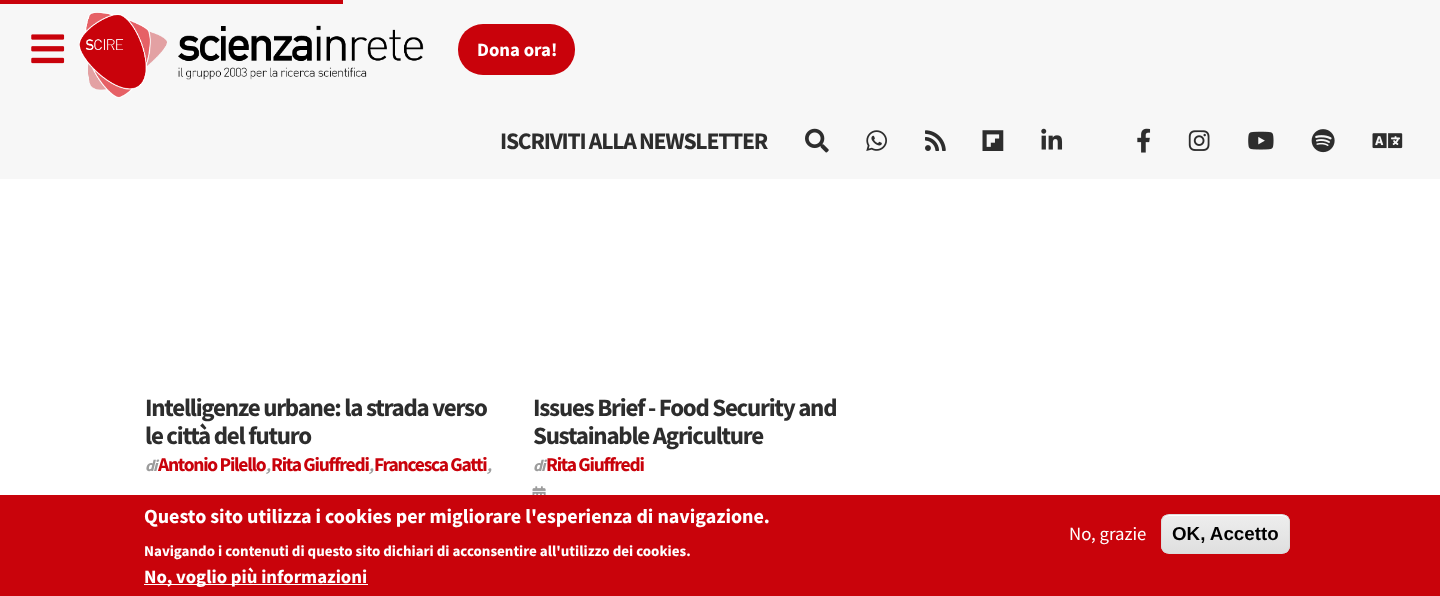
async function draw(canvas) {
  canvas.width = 1440;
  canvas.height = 596;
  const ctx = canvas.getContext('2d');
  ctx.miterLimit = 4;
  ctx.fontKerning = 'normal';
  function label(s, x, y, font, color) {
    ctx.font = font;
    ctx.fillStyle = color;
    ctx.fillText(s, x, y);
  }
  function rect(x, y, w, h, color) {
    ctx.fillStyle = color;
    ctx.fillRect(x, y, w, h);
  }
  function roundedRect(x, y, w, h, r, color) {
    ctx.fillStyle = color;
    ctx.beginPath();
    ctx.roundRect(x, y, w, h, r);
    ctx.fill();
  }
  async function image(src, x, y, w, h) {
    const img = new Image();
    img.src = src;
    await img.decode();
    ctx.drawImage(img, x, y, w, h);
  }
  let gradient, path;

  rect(0, 0, 1440, 596, '#fff');
  rect(0, 0, 1440, 179, '#f7f7f7');
  rect(0, 0, 343, 4, '#c9020b');
  await image('assets/img1.png', 31, 34, 34, 30);
  await image('assets/img2.png', 79, 12, 345, 86);
  roundedRect(458, 24, 117, 51, 25, '#c9020b');
  label('Dona ora!', 477, 56, 'bold 18.75px Source Sans Pro', '#fff');
  ctx.letterSpacing = '-1.25px';
  label('ISCRIVITI ALLA NEWSLETTER', 500, 149, 'bold 23.75px Source Sans Pro', '#2d2d2d');
  await image('assets/img3.png', 805, 128, 24, 25);
  await image('assets/img4.png', 866, 130, 21, 21);
  await image('assets/img5.png', 925, 130, 21, 21);
  await image('assets/img6.png', 982, 130, 22, 21);
  await image('assets/img7.png', 1041, 128, 22, 22);
  await image('assets/img8.png', 1137, 128, 14, 25);
  await image('assets/img9.png', 1188, 130, 22, 21);
  await image('assets/img10.png', 1248, 131, 26, 19);
  await image('assets/img11.png', 1311, 129, 24, 24);
  await image('assets/img12.png', 1372, 133, 31, 16);
  label('Intelligenze urbane: la strada verso', 145, 416, 'bold 25px Source Sans Pro', '#2d2d2d');
  label('le città del futuro', 145, 444, 'bold 25px Source Sans Pro', '#2d2d2d');
  label('di', 145, 471, 'italic bold 16px Source Sans Pro', '#9c9c9c');
  label('Antonio Pilello', 158, 471, 'bold 19.5px Source Sans Pro', '#c9020b');
  label(',', 266, 471, 'italic bold 16px Source Sans Pro', '#9c9c9c');
  label('Rita Giuffredi', 271, 471, 'bold 19.5px Source Sans Pro', '#c9020b');
  label(',', 369, 471, 'italic bold 16px Source Sans Pro', '#9c9c9c');
  label('Francesca Gatti', 374, 471, 'bold 19.5px Source Sans Pro', '#c9020b');
  label(',', 487, 471, 'italic bold 16px Source Sans Pro', '#9c9c9c');
  label('Issues Brief - Food Security and', 533, 416, 'bold 25px Source Sans Pro', '#2d2d2d');
  label('Sustainable Agriculture', 533, 444, 'bold 25px Source Sans Pro', '#2d2d2d');
  label('di', 533, 471, 'italic bold 16px Source Sans Pro', '#9c9c9c');
  label('Rita Giuffredi', 546, 471, 'bold 19.5px Source Sans Pro', '#c9020b');
  await image('assets/img13.png', 532, 486, 14, 9);
  rect(0, 495, 1440, 101, '#c9030b');
  ctx.letterSpacing = '0px';
  label('Questo sito utilizza i cookies per migliorare l\'esperienza di navigazione.', 144, 523, 'bold 20px Source Sans Pro', '#fff');
  label('Navigando i contenuti di questo sito dichiari di acconsentire all\'utilizzo dei cookies.', 144, 556, 'bold 15px Source Sans Pro', '#fff');
  rect(144, 584, 224, 1, '#fff');
  label('No, voglio più informazioni', 144, 583, 'bold 18.75px Source Sans Pro', '#fff');
  label('No, grazie', 1069, 540, '18.75px Source Sans Pro', '#fff');
  ctx.save();
  ctx.beginPath();
  ctx.roundRect(1161, 514, 129, 40, 8);
  ctx.clip();
  gradient = ctx.createLinearGradient(1226, 515, 1226, 553);
  gradient.addColorStop(0.05, '#ededed');
  gradient.addColorStop(1, '#dfdfdf');
  ctx.fillStyle = gradient;
  ctx.fillRect(1161, 515, 129, 38);
  ctx.restore();
  path = new Path2D('M1169 516H1282C1286 516 1289 519 1289 522V521C1289 518 1286 515 1283 515H1169C1167 515 1165 516 1164 518C1165 517 1167 516 1169 516Z');
  ctx.fill(path);
  ctx.beginPath();
  ctx.roundRect(1161.5, 514.5, 128, 39, 7.5);
  ctx.strokeStyle = '#dcdcdc';
  ctx.stroke();
  label('OK, Accetto', 1172, 540, 'bold 18.75px Liberation Sans', '#000');
}

draw(document.querySelector('canvas'));
